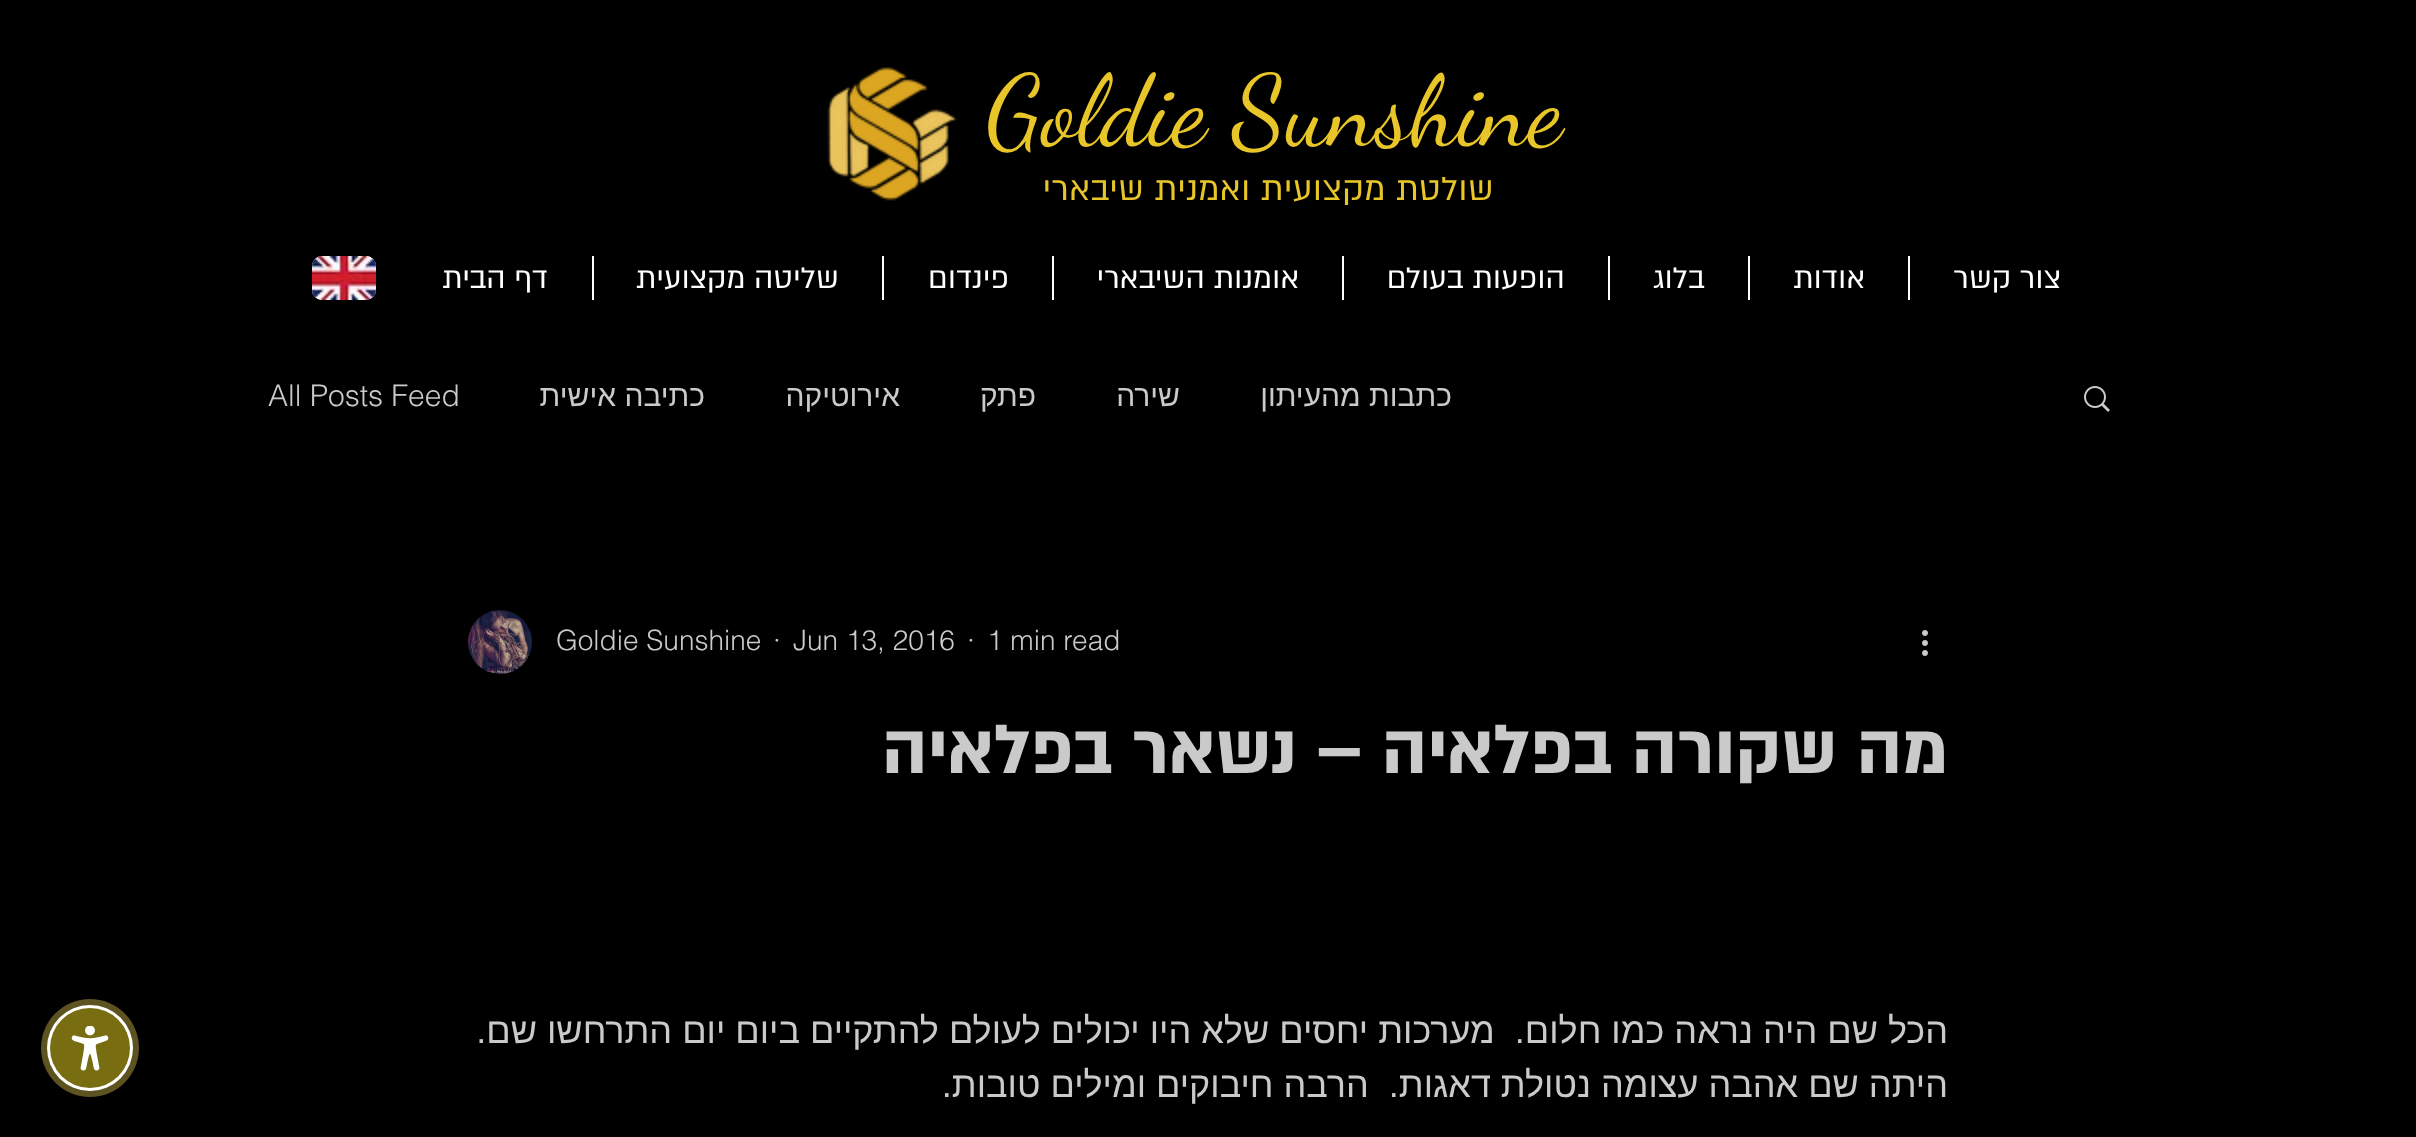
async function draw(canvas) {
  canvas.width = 2416;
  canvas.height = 1137;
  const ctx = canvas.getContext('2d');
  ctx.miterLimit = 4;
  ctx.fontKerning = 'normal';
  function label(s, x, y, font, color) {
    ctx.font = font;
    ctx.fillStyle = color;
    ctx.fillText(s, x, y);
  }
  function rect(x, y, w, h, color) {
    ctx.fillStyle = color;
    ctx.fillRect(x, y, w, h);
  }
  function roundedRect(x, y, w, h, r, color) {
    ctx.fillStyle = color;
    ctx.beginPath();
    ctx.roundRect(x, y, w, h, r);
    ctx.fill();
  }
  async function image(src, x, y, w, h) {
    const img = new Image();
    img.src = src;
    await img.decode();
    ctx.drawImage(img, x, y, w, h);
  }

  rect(0, 0, 2416, 1137, '#000');
  label('Goldie Sunshine', 986, 144, '100px Dancing Script', '#e8c529');
  await image('assets/img1.png', 827, 67, 130, 134);
  ctx.letterSpacing = '0.4px';
  ctx.direction = 'rtl';
  label('שולטת מקצועית ואמנית שיבארי', 1494, 200, '38px "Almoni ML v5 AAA"', '#e8c529');
  rect(1908, 256, 2, 44, '#fff');
  ctx.letterSpacing = '0px';
  label('צור קשר', 2061, 288, '34px "Almoni ML v5 AAA"', '#fff');
  rect(1748, 256, 2, 44, '#fff');
  label('אודות', 1865, 288, '34px "Almoni ML v5 AAA"', '#fff');
  rect(1608, 256, 2, 44, '#fff');
  label('בלוג', 1705, 288, '34px "Almoni ML v5 AAA"', '#fff');
  rect(1342, 256, 2, 44, '#fff');
  label('הופעות בעולם', 1565, 288, '34px "Almoni ML v5 AAA"', '#fff');
  rect(1052, 256, 2, 44, '#fff');
  label('אומנות השיבארי', 1299, 288, '34px "Almoni ML v5 AAA"', '#fff');
  rect(882, 256, 2, 44, '#fff');
  label('פינדום', 1009, 288, '34px "Almoni ML v5 AAA"', '#fff');
  rect(592, 256, 2, 44, '#fff');
  label('שליטה מקצועית', 839, 288, '34px "Almoni ML v5 AAA"', '#fff');
  label('דף הבית', 548, 288, '34px "Almoni ML v5 AAA"', '#fff');
  roundedRect(312, 256, 64, 44, 10, '#fff');
  await image('assets/img2.png', 312, 256, 64, 44);
  await image('assets/img3.png', 2084, 386, 26, 26);
  label('כתבות מהעיתון', 1452, 406, '30px Liberation Sans', '#cacaca');
  label('שירה', 1180, 406, '30px Liberation Sans', '#cacaca');
  label('פתק', 1036, 406, '30px Liberation Sans', '#cacaca');
  label('אירוטיקה', 900, 406, '30px Liberation Sans', '#cacaca');
  label('כתיבה אישית', 705, 406, '30px Liberation Sans', '#cacaca');
  ctx.direction = 'ltr';
  label('All Posts Feed', 268, 406, '300 30px helvetica', '#cacaca');
  await image('assets/img4.png', 1922, 630, 6, 26);
  label('1 min read', 987, 650, '300 28px helvetica', '#cacaca');
  label('·', 967, 650, '300 28px helvetica', '#cacaca');
  label('Jun 13, 2016', 793, 650, '300 28px helvetica', '#cacaca');
  label('·', 773, 650, '300 28px helvetica', '#cacaca');
  label('Goldie Sunshine', 556, 650, '300 28px helvetica', '#cacaca');
  await image('assets/img5.png', 468, 610, 64, 64);
  ctx.direction = 'rtl';
  label('מה שקורה בפלאיה – נשאר בפלאיה', 1948, 773, 'bold 80px "Almoni ML v5 AAA"', '#cacaca');
  label('הכל שם היה נראה כמו חלום.  מערכות יחסים שלא היו יכולים לעולם להתקיים ביום יום התרחשו שם.', 1948, 1043, '36px Liberation Sans', '#cacaca');
  label('היתה שם אהבה עצומה נטולת דאגות.  הרבה חיבוקים ומילים טובות.', 1948, 1097, '36px Liberation Sans', '#cacaca');
  ctx.fillStyle = '#5c5321';
  ctx.beginPath();
  ctx.arc(90, 1048, 49, 0, 2 * Math.PI);
  ctx.fill();
  ctx.fillStyle = '#fff';
  ctx.beginPath();
  ctx.arc(90, 1048, 43, 0, 2 * Math.PI);
  ctx.fill();
  ctx.fillStyle = '#796d12';
  ctx.beginPath();
  ctx.arc(90, 1048, 40, 0, 2 * Math.PI);
  ctx.fill();
  await image('assets/img6.png', 71, 1026, 38, 45);
}

draw(document.querySelector('canvas'));
